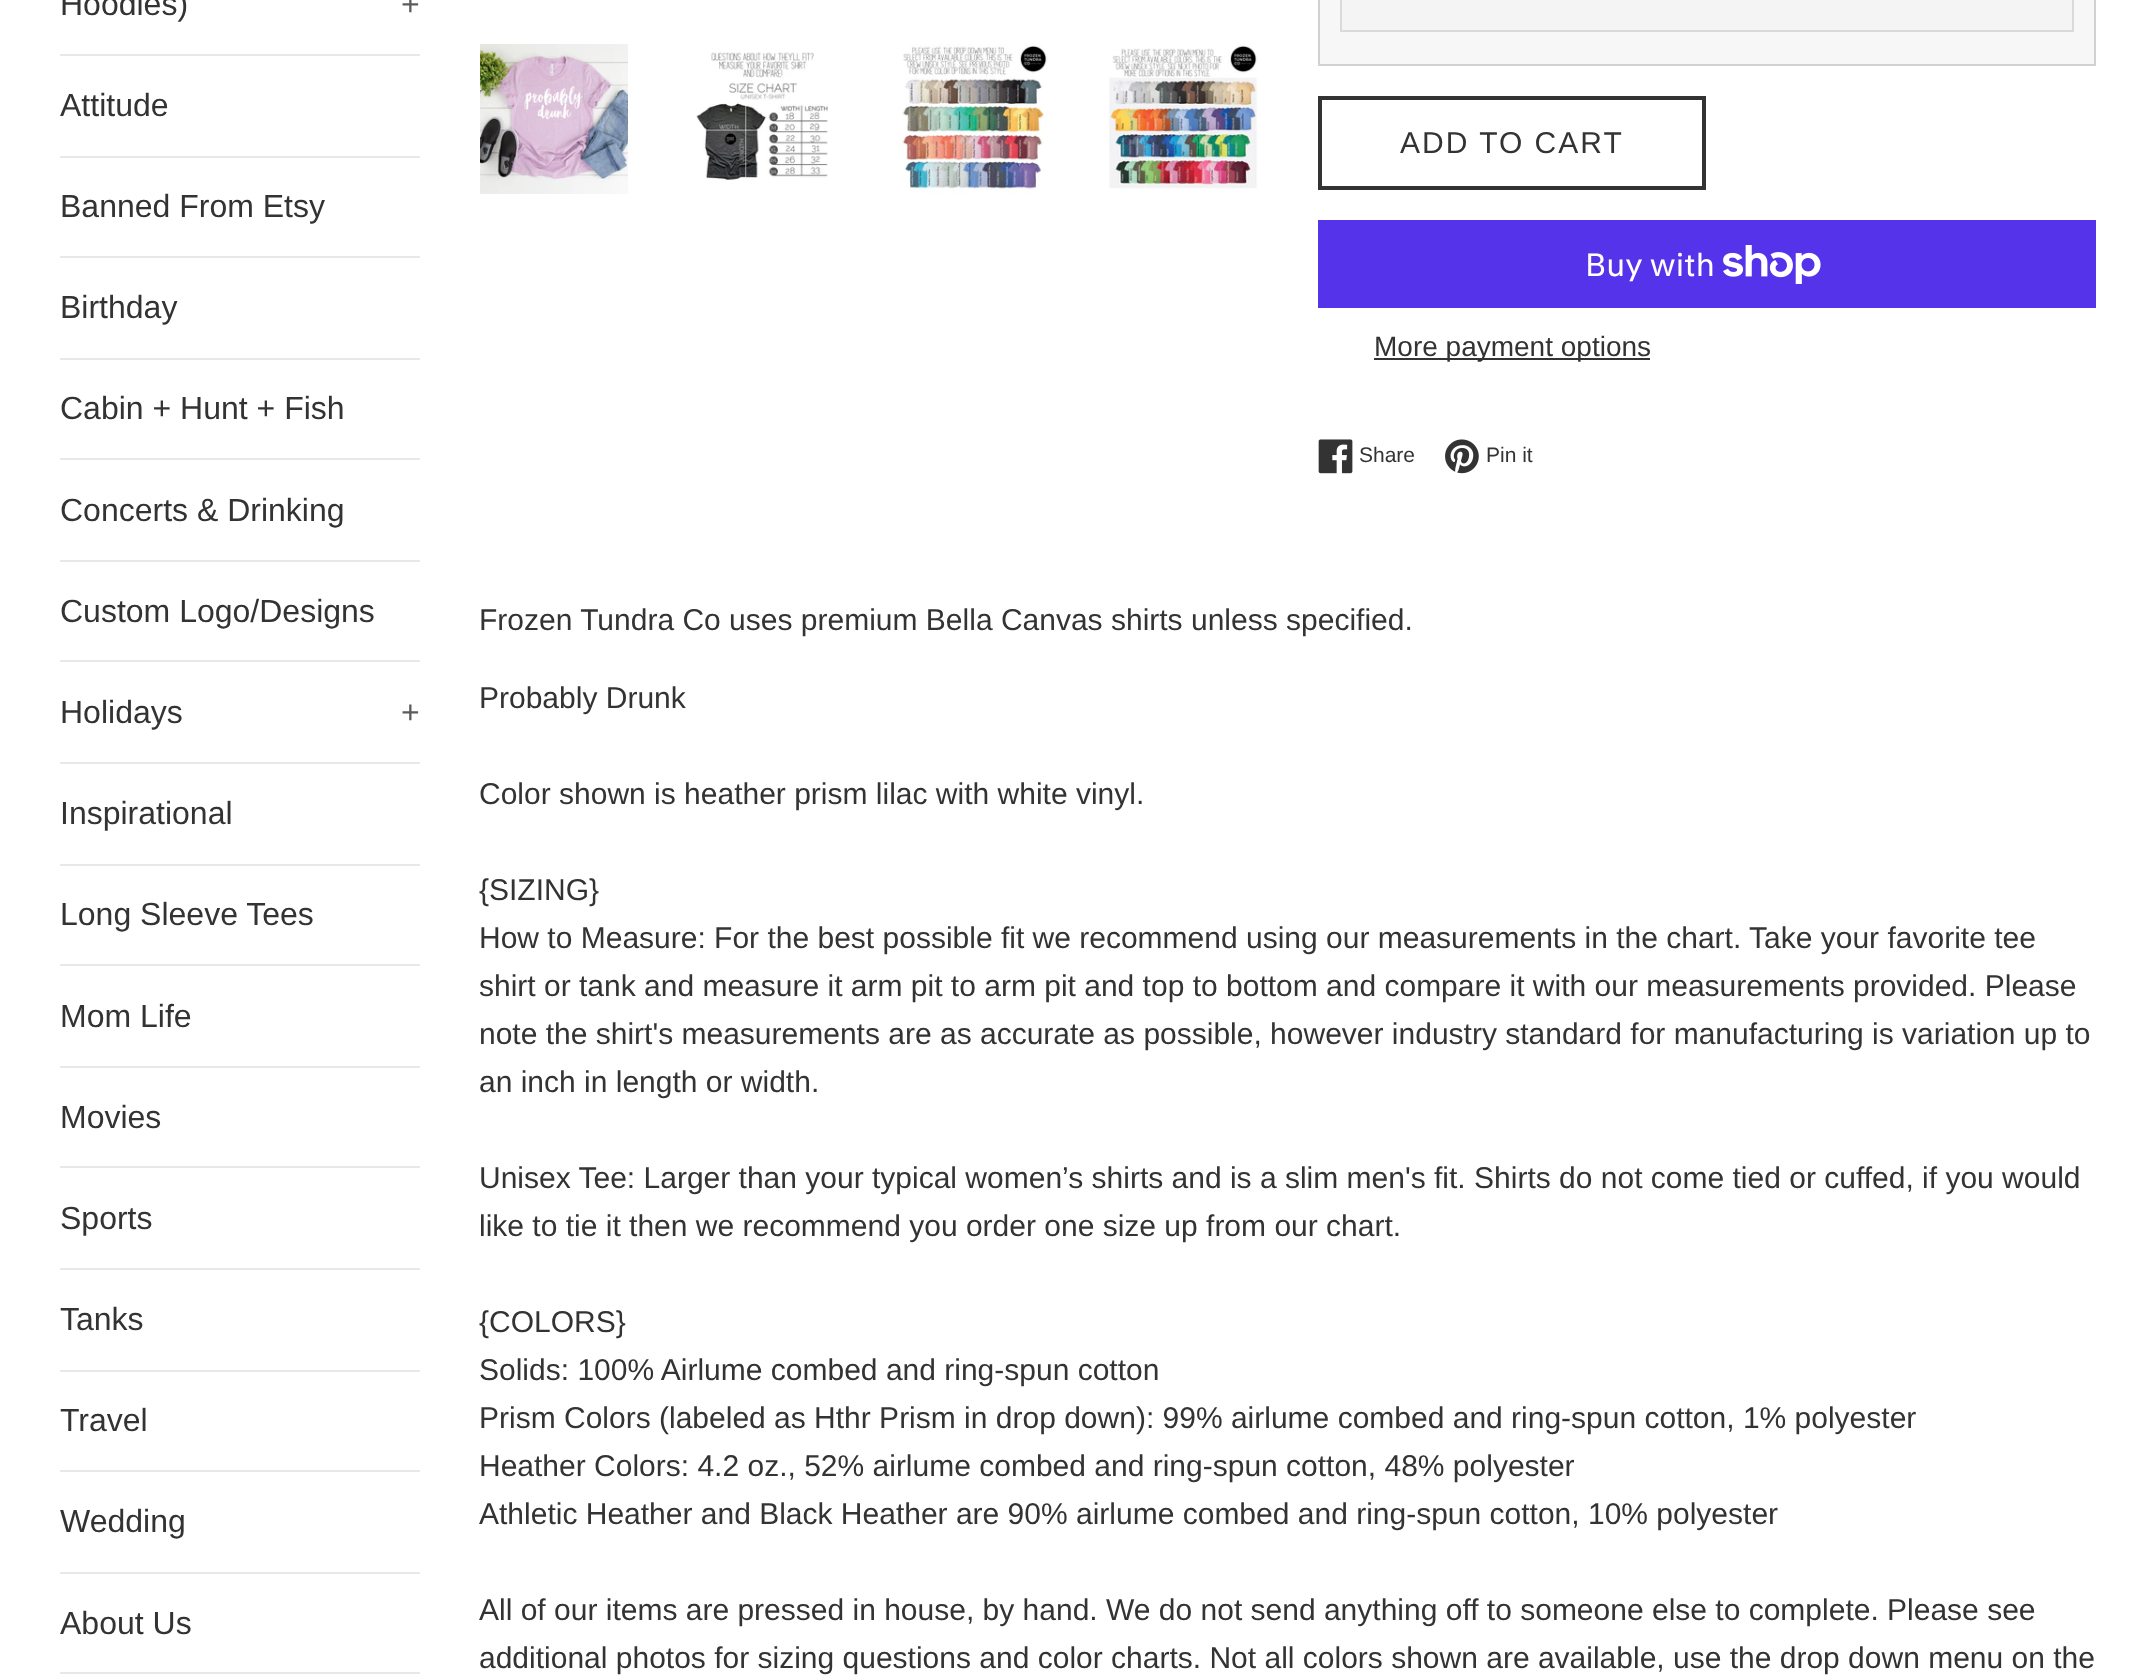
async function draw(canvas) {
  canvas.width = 2155;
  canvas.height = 1680;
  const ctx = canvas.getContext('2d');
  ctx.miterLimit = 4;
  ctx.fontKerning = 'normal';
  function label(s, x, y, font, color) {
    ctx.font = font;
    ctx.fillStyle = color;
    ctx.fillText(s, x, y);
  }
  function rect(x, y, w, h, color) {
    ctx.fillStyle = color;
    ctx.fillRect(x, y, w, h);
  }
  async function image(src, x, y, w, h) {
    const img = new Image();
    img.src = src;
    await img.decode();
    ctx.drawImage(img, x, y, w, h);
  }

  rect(0, 0, 2155, 1680, '#fff');
  rect(60, 54, 360, 2, '#e8e8e8');
  label('Hoodies)', 60, 15, '32px Arimo', '#333');
  label('+', 401, 15, '32px Arimo', '#5c5c5c');
  rect(60, 156, 360, 2, '#e8e8e8');
  label('Attitude', 60, 116, '32px Arimo', '#333');
  rect(60, 256, 360, 2, '#e8e8e8');
  label('Banned From Etsy', 60, 217, '32px Arimo', '#333');
  rect(60, 358, 360, 2, '#e8e8e8');
  label('Birthday', 60, 318, '32px Arimo', '#333');
  rect(60, 458, 360, 2, '#e8e8e8');
  label('Cabin + Hunt + Fish', 60, 419, '32px Arimo', '#333');
  rect(60, 560, 360, 2, '#e8e8e8');
  label('Concerts & Drinking', 60, 521, '32px Arimo', '#333');
  rect(60, 660, 360, 2, '#e8e8e8');
  label('Custom Logo/Designs', 60, 622, '32px Arimo', '#333');
  rect(60, 762, 360, 2, '#e8e8e8');
  label('Holidays', 60, 723, '32px Arimo', '#333');
  label('+', 401, 723, '32px Arimo', '#5c5c5c');
  rect(60, 864, 360, 2, '#e8e8e8');
  label('Inspirational', 60, 824, '32px Arimo', '#333');
  rect(60, 964, 360, 2, '#e8e8e8');
  label('Long Sleeve Tees', 60, 925, '32px Arimo', '#333');
  rect(60, 1066, 360, 2, '#e8e8e8');
  label('Mom Life', 60, 1027, '32px Arimo', '#333');
  rect(60, 1166, 360, 2, '#e8e8e8');
  label('Movies', 60, 1128, '32px Arimo', '#333');
  rect(60, 1268, 360, 2, '#e8e8e8');
  label('Sports', 60, 1229, '32px Arimo', '#333');
  rect(60, 1370, 360, 2, '#e8e8e8');
  label('Tanks', 60, 1330, '32px Arimo', '#333');
  rect(60, 1470, 360, 2, '#e8e8e8');
  label('Travel', 60, 1431, '32px Arimo', '#333');
  rect(60, 1572, 360, 2, '#e8e8e8');
  label('Wedding', 60, 1532, '32px Arimo', '#333');
  rect(60, 1672, 360, 2, '#e8e8e8');
  label('About Us', 60, 1634, '32px Arimo', '#333');
  await image('assets/img1.png', 480, 44, 148, 150);
  await image('assets/img2.png', 696, 52, 132, 129);
  await image('assets/img3.png', 898, 44, 150, 150);
  await image('assets/img4.png', 1108, 44, 150, 145);
  ctx.fillStyle = '#f7f7f7';
  ctx.beginPath();
  ctx.rect(1319, -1, 776, 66);
  ctx.fill();
  ctx.strokeStyle = '#d1d1d1';
  ctx.lineWidth = 2;
  ctx.stroke();
  ctx.fillStyle = '#f4f4f4';
  ctx.beginPath();
  ctx.rect(1341, -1, 732, 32);
  ctx.fill();
  ctx.strokeStyle = '#dadada';
  ctx.stroke();
  ctx.strokeStyle = '#333';
  ctx.lineWidth = 4;
  ctx.strokeRect(1320, 98, 384, 90);
  ctx.letterSpacing = '2px';
  label('ADD TO CART', 1400, 153, '30px Arimo', '#333');
  rect(1318, 220, 778, 88, '#5433eb');
  ctx.letterSpacing = '0px';
  label('Buy with', 1585, 276, '32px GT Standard', '#fff');
  await image('assets/img5.png', 1723, 245, 98, 39);
  rect(1374, 358, 276, 2, '#333');
  label('More payment options', 1374, 356, '28px Arimo', '#333');
  await image('assets/img6.png', 1318, 439, 35, 35);
  label('Share', 1359, 462, '21px Arimo', '#333');
  await image('assets/img7.png', 1445, 439, 34, 35);
  label('Pin it', 1486, 462, '21px Arimo', '#333');
  label('Frozen Tundra Co uses premium Bella Canvas shirts unless specified.', 479, 630, '30px Arimo', '#333');
  label('Probably Drunk', 479, 708, '30px Arimo', '#333');
  label('Color shown is heather prism lilac with white vinyl.', 479, 804, '30px Arimo', '#333');
  label('{SIZING}', 479, 900, '30px Arimo', '#333');
  label('How to Measure: For the best possible fit we recommend using our measurements in the chart. Take your favorite tee', 479, 948, '30px Arimo', '#333');
  label('shirt or tank and measure it arm pit to arm pit and top to bottom and compare it with our measurements provided. Please', 479, 996, '30px Arimo', '#333');
  label('note the shirt\'s measurements are as accurate as possible, however industry standard for manufacturing is variation up to', 479, 1044, '30px Arimo', '#333');
  label('an inch in length or width.', 479, 1092, '30px Arimo', '#333');
  label('Unisex Tee: Larger than your typical women’s shirts and is a slim men\'s fit. Shirts do not come tied or cuffed, if you would', 479, 1188, '30px Arimo', '#333');
  label('like to tie it then we recommend you order one size up from our chart.', 479, 1236, '30px Arimo', '#333');
  label('{COLORS}', 479, 1332, '30px Arimo', '#333');
  label('Solids: 100% Airlume combed and ring-spun cotton', 479, 1380, '30px Arimo', '#333');
  label('Prism Colors (labeled as Hthr Prism in drop down): 99% airlume combed and ring-spun cotton, 1% polyester', 479, 1428, '30px Arimo', '#333');
  label('Heather Colors: 4.2 oz., 52% airlume combed and ring-spun cotton, 48% polyester', 479, 1476, '30px Arimo', '#333');
  label('Athletic Heather and Black Heather are 90% airlume combed and ring-spun cotton, 10% polyester', 479, 1524, '30px Arimo', '#333');
  label('All of our items are pressed in house, by hand. We do not send anything off to someone else to complete. Please see', 479, 1620, '30px Arimo', '#333');
  label('additional photos for sizing questions and color charts. Not all colors shown are available, use the drop down menu on the', 479, 1668, '30px Arimo', '#333');
}

draw(document.querySelector('canvas'));
